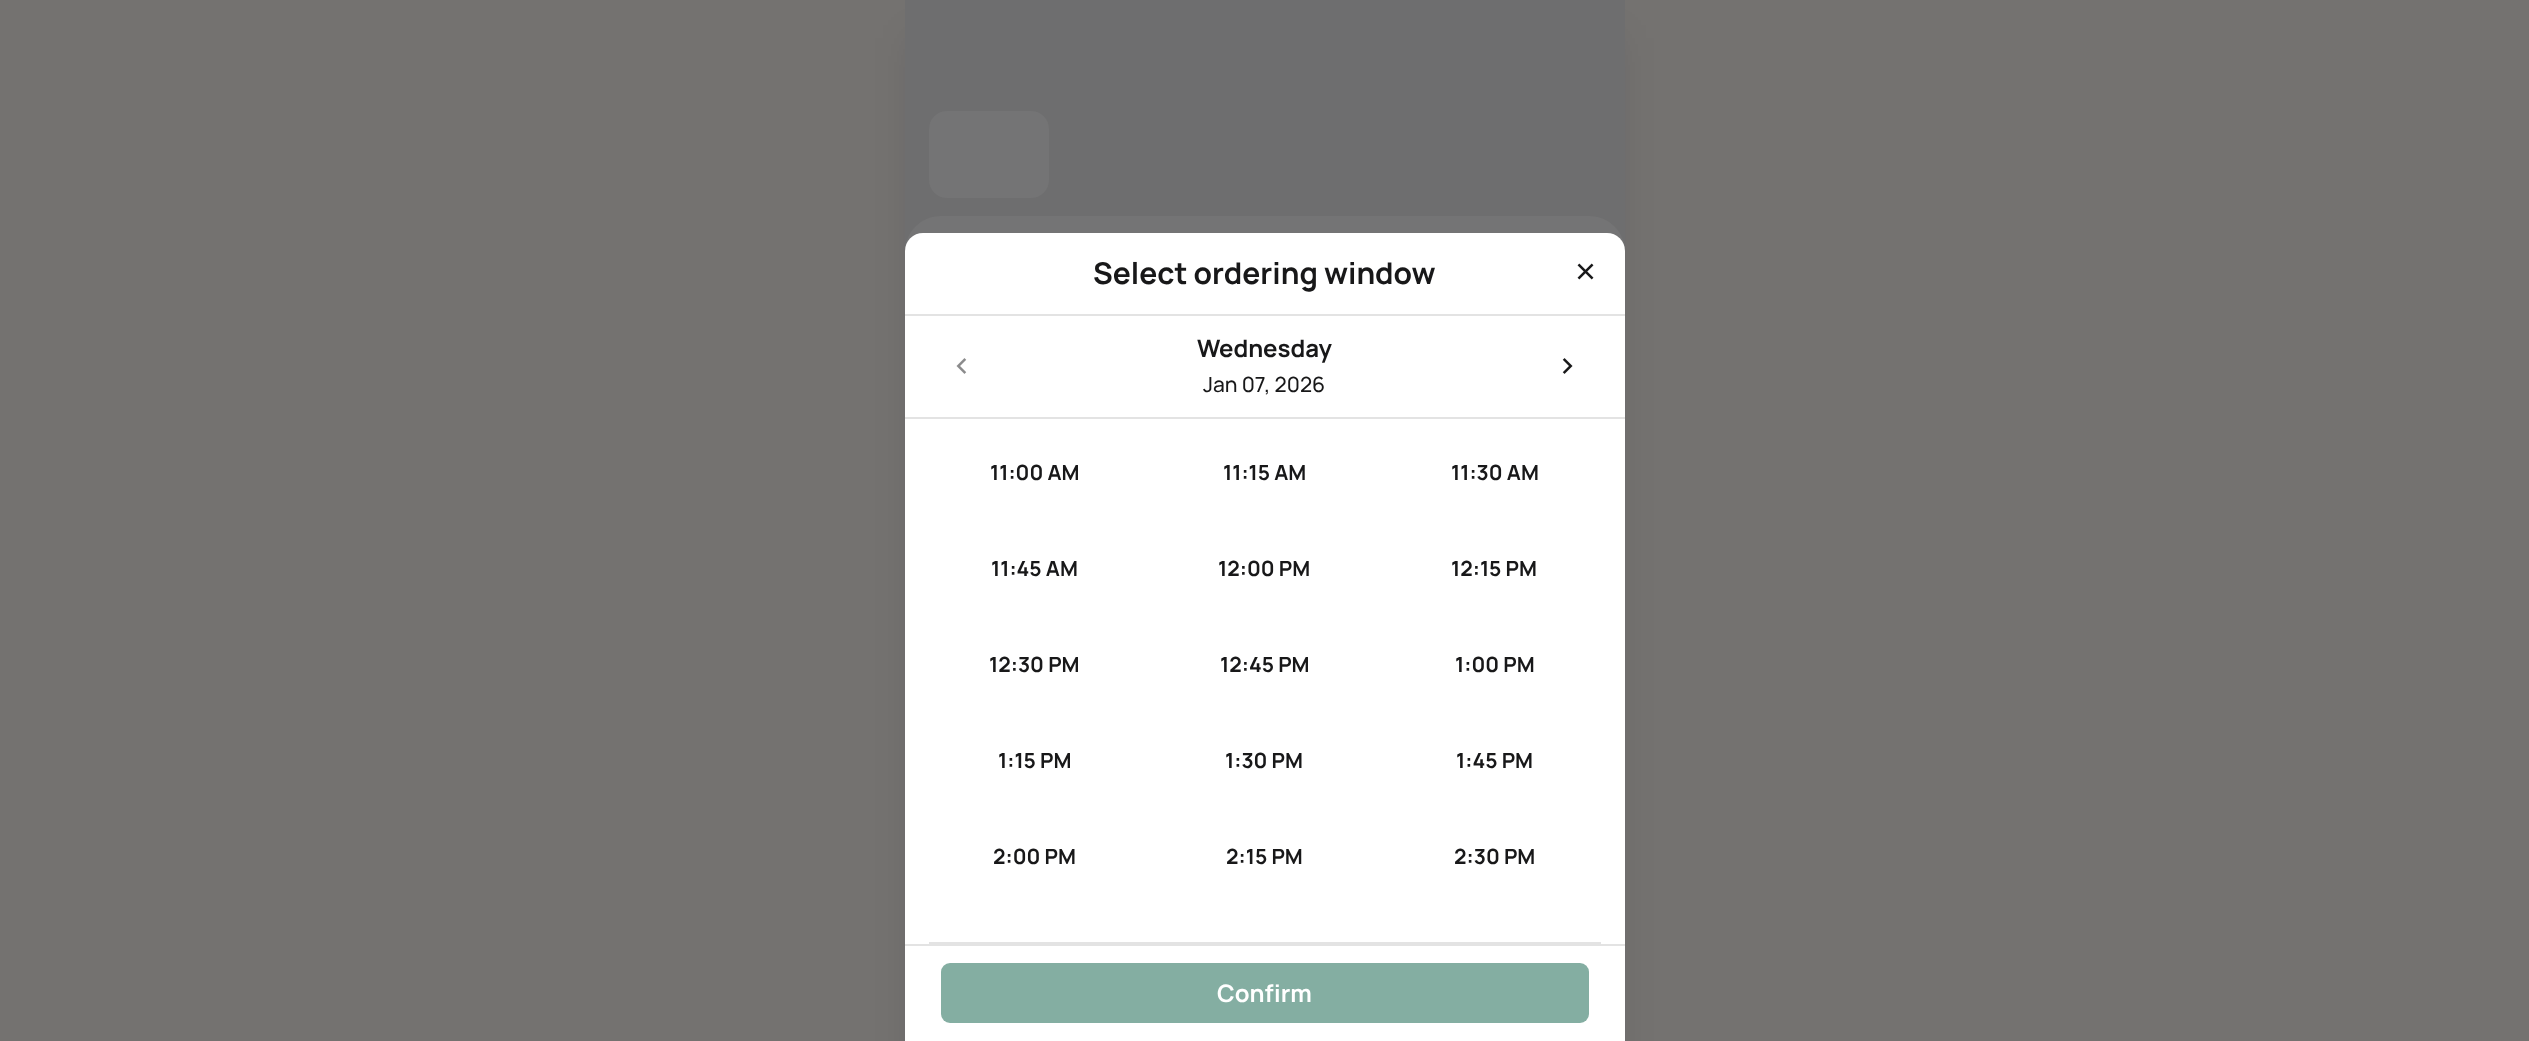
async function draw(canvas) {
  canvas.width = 2529;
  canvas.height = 1041;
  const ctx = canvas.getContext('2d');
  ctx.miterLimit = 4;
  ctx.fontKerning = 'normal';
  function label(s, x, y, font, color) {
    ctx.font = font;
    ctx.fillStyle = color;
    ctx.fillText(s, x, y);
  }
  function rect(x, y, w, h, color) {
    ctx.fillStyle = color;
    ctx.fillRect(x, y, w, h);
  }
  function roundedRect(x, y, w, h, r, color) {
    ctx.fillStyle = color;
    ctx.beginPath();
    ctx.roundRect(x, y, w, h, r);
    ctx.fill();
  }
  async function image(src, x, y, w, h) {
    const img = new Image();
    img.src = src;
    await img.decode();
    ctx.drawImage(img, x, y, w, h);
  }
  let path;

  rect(0, 0, 2529, 1041, '#747270');
  ctx.fillStyle = '#0e0e0f1a';
  ctx.filter = 'blur(19px)';
  ctx.beginPath();
  ctx.rect(912, 38, 705, 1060);
  ctx.fill();
  ctx.filter = 'none';
  rect(905, 0, 720, 251, '#6e6e6f');
  roundedRect(929, 111, 120, 87, 18, '#747475');
  path = new Path2D('M941 216H1589C1609 216 1625 232 1625 252V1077H905V252C905 232 921 216 941 216Z');
  ctx.fill(path);
  ctx.fillStyle = '#fff';
  ctx.beginPath();
  ctx.roundRect(905, 233, 720, 808, [18, 18, 0, 0]);
  ctx.fill();
  rect(905, 314, 720, 2, '#e3e3e3');
  label('Select ordering window', 1093, 284, 'bold 30px Manrope', '#181819');
  await image('assets/img1.png', 1577, 263, 17, 17);
  await image('assets/img2.png', 956, 358, 11, 16);
  label('Wednesday', 1197, 357, 'bold 24px Manrope', '#181819');
  label('Jan 07, 2026', 1203, 392, '500 21px Manrope', '#181819');
  await image('assets/img3.png', 1562, 358, 11, 16);
  rect(905, 417, 720, 2, '#e3e3e3');
  label('11:00 AM', 990, 480, 'bold 21px Manrope', '#181819');
  label('11:15 AM', 1223, 480, 'bold 21px Manrope', '#181819');
  label('11:30 AM', 1451, 480, 'bold 21px Manrope', '#181819');
  label('11:45 AM', 991, 576, 'bold 21px Manrope', '#181819');
  label('12:00 PM', 1218, 576, 'bold 21px Manrope', '#181819');
  label('12:15 PM', 1451, 576, 'bold 21px Manrope', '#181819');
  label('12:30 PM', 989, 672, 'bold 21px Manrope', '#181819');
  label('12:45 PM', 1220, 672, 'bold 21px Manrope', '#181819');
  label('1:00 PM', 1455, 672, 'bold 21px Manrope', '#181819');
  label('1:15 PM', 998, 768, 'bold 21px Manrope', '#181819');
  label('1:30 PM', 1225, 768, 'bold 21px Manrope', '#181819');
  label('1:45 PM', 1456, 768, 'bold 21px Manrope', '#181819');
  label('2:00 PM', 993, 864, 'bold 21px Manrope', '#181819');
  label('2:15 PM', 1226, 864, 'bold 21px Manrope', '#181819');
  label('2:30 PM', 1454, 864, 'bold 21px Manrope', '#181819');
  rect(929, 942, 672, 2, '#e3e3e3');
  rect(905, 944, 720, 2, '#e3e3e3');
  roundedRect(941, 963, 648, 60, 9, '#84aea2');
  label('Confirm', 1217, 1002, 'bold 24px Manrope', '#fff');
}

draw(document.querySelector('canvas'));
